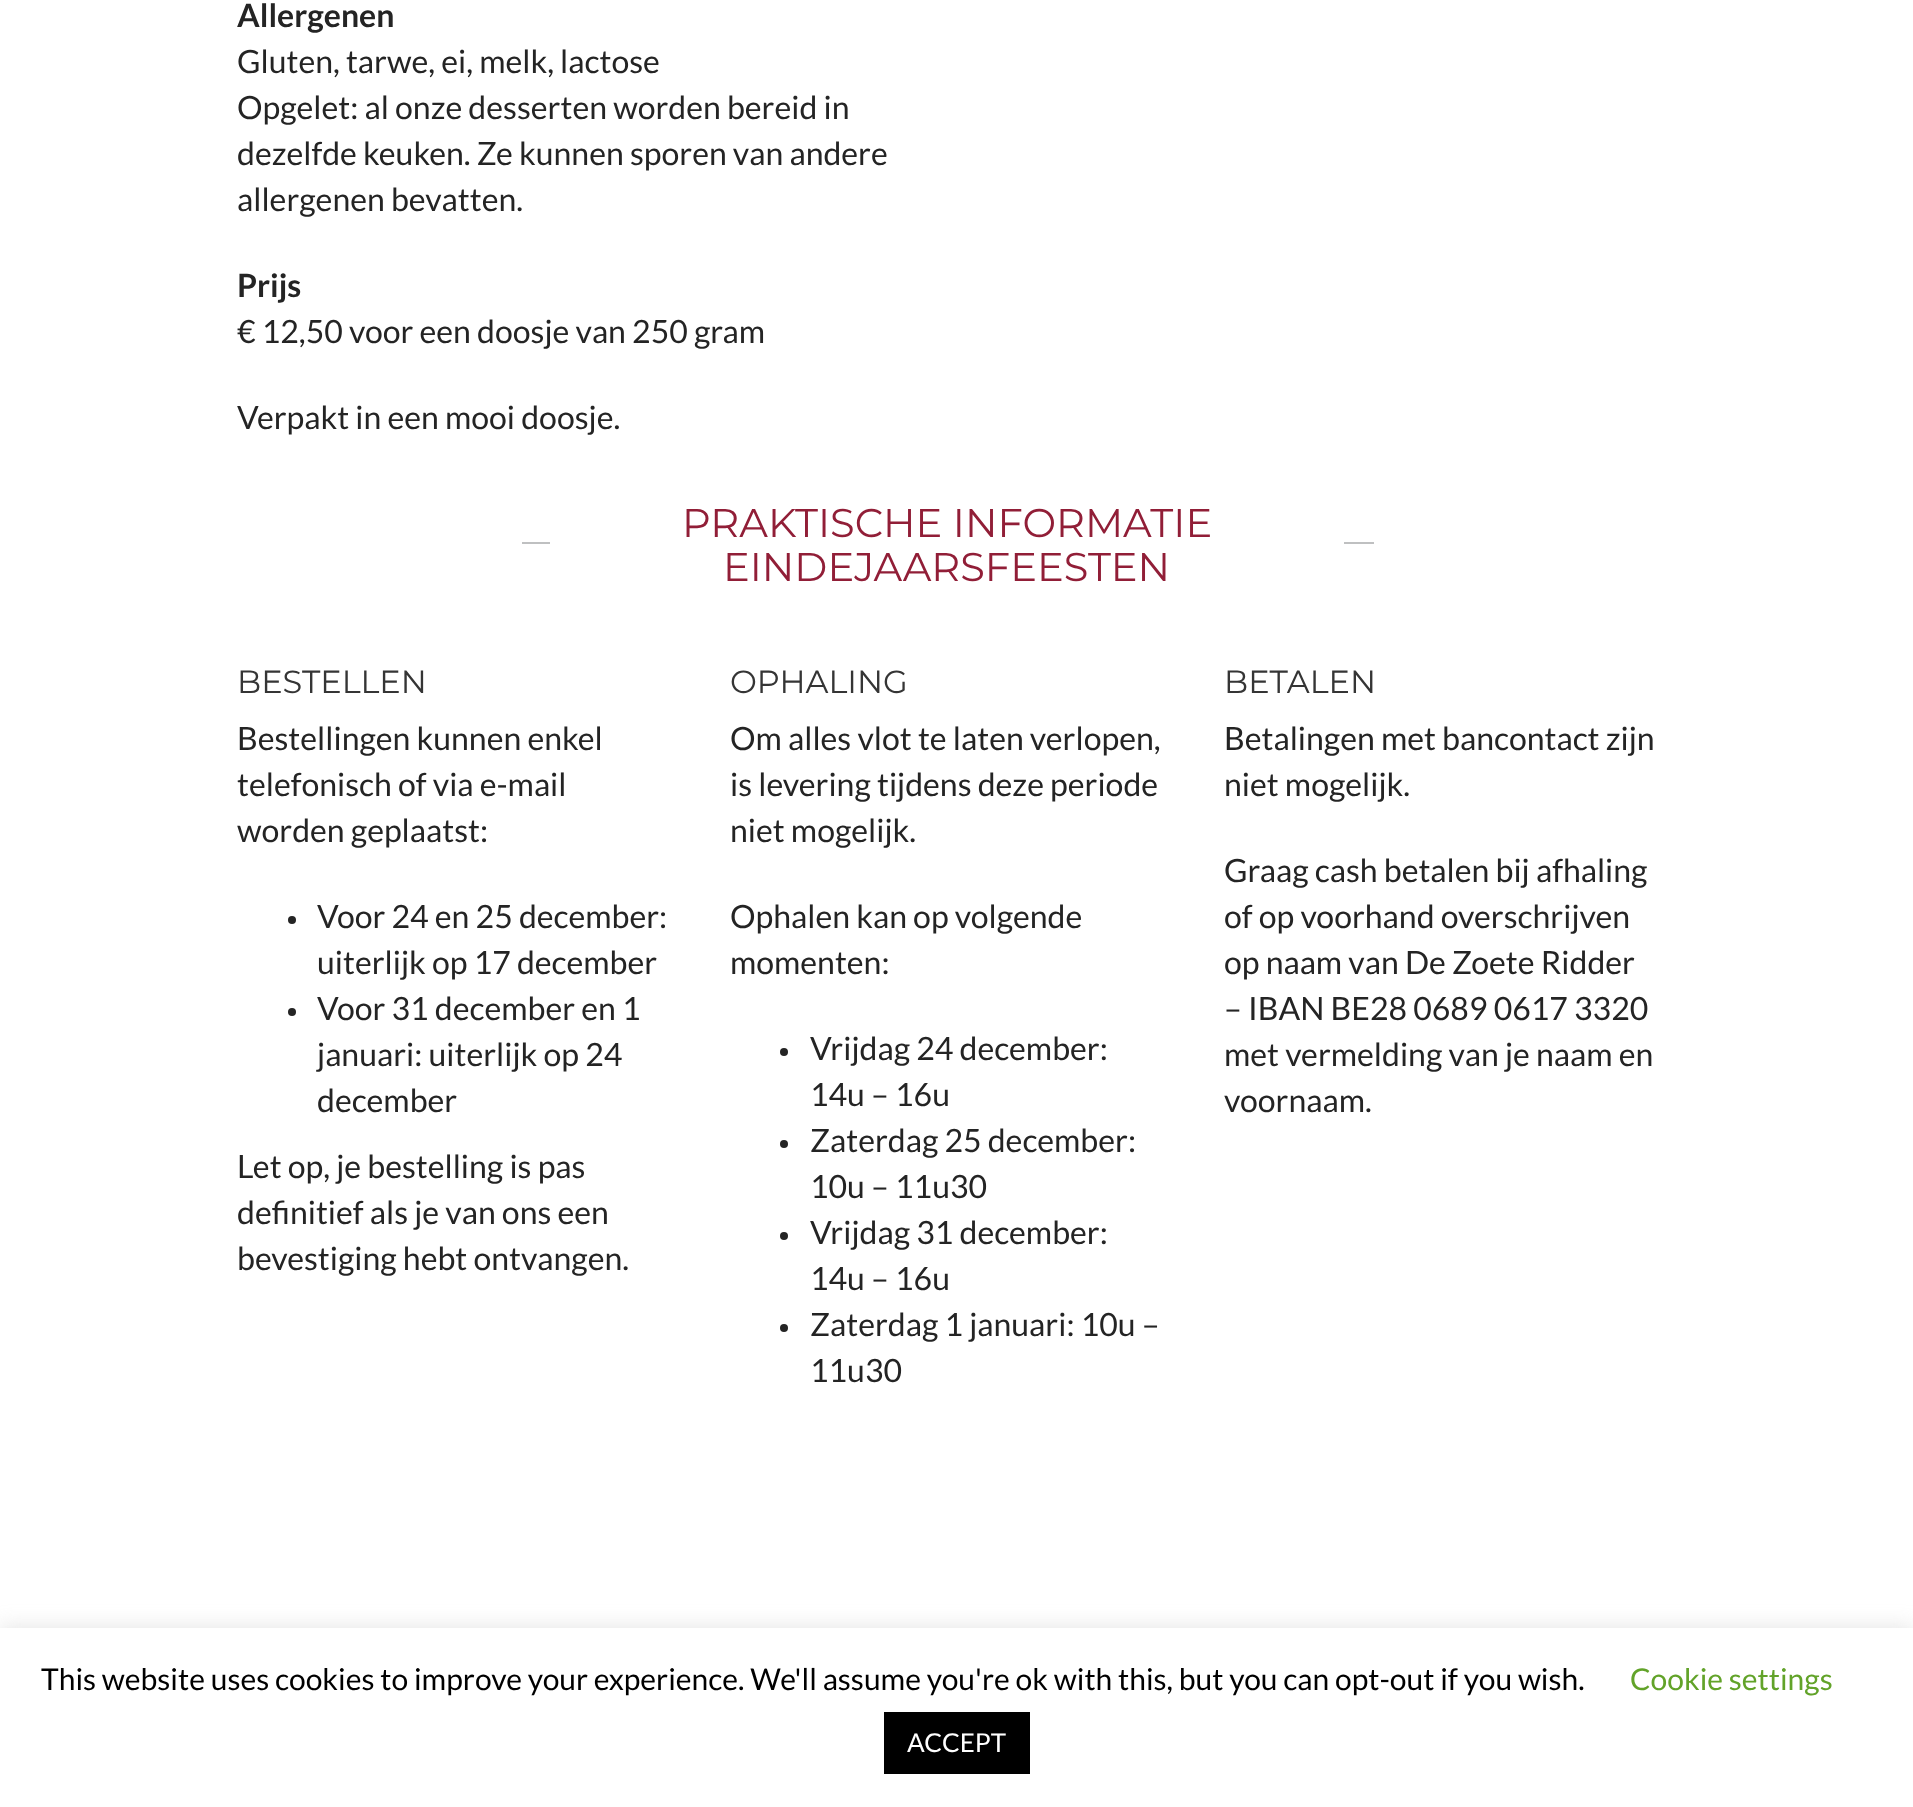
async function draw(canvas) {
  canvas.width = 1913;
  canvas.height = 1807;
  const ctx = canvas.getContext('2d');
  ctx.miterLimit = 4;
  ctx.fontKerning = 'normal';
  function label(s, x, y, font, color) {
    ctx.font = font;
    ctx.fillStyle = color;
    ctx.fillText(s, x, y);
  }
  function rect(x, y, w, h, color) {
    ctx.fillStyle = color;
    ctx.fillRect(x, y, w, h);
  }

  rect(0, 0, 1913, 1807, '#fff');
  label('Allergenen', 237, 27, 'bold 32px Lato', '#242424');
  label('Gluten, tarwe, ei, melk, lactose', 237, 73, '32px Lato', '#242424');
  label('Opgelet: al onze desserten worden bereid in', 237, 119, '32px Lato', '#242424');
  label('dezelfde keuken. Ze kunnen sporen van andere', 237, 165, '32px Lato', '#242424');
  label('allergenen bevatten.', 237, 211, '32px Lato', '#242424');
  label('Prijs', 237, 297, 'bold 32px Lato', '#242424');
  label('€ 12,50 voor een doosje van 250 gram', 237, 343, '32px Lato', '#242424');
  label('Verpakt in een mooi doosje.', 237, 429, '32px Lato', '#242424');
  rect(522, 542, 28, 2, '#bfc0c1');
  label('PRAKTISCHE INFORMATIE', 682, 537, '40px Montserrat', '#911e37');
  label('EINDEJAARSFEESTEN', 723, 581, '40px Montserrat', '#911e37');
  rect(1344, 542, 30, 2, '#bfc0c1');
  label('BESTELLEN', 237, 693, '32px Montserrat', '#353535');
  label('Bestellingen kunnen enkel', 237, 750, '32px Lato', '#242424');
  label('telefonisch of via e-mail', 237, 796, '32px Lato', '#242424');
  label('worden geplaatst:', 237, 842, '32px Lato', '#242424');
  ctx.beginPath();
  ctx.arc(292, 920, 4, 0, 2 * Math.PI);
  ctx.fill();
  label('Voor 24 en 25 december:', 317, 928, '32px Lato', '#242424');
  label('uiterlijk op 17 december', 317, 974, '32px Lato', '#242424');
  ctx.beginPath();
  ctx.arc(292, 1012, 4, 0, 2 * Math.PI);
  ctx.fill();
  label('Voor 31 december en 1', 317, 1020, '32px Lato', '#242424');
  label('januari: uiterlijk op 24', 317, 1066, '32px Lato', '#242424');
  label('december', 317, 1112, '32px Lato', '#242424');
  label('Let op, je bestelling is pas', 237, 1178, '32px Lato', '#242424');
  label('definitief als je van ons een', 237, 1224, '32px Lato', '#242424');
  label('bevestiging hebt ontvangen.', 237, 1270, '32px Lato', '#242424');
  label('OPHALING', 730, 693, '32px Montserrat', '#353535');
  label('Om alles vlot te laten verlopen,', 730, 750, '32px Lato', '#242424');
  label('is levering tijdens deze periode', 730, 796, '32px Lato', '#242424');
  label('niet mogelijk.', 730, 842, '32px Lato', '#242424');
  label('Ophalen kan op volgende', 730, 928, '32px Lato', '#242424');
  label('momenten:', 730, 974, '32px Lato', '#242424');
  ctx.beginPath();
  ctx.arc(784, 1052, 4, 0, 2 * Math.PI);
  ctx.fill();
  label('Vrijdag 24 december:', 810, 1060, '32px Lato', '#242424');
  label('14u – 16u', 810, 1106, '32px Lato', '#242424');
  ctx.beginPath();
  ctx.arc(784, 1144, 4, 0, 2 * Math.PI);
  ctx.fill();
  label('Zaterdag 25 december:', 810, 1152, '32px Lato', '#242424');
  label('10u – 11u30', 810, 1198, '32px Lato', '#242424');
  ctx.beginPath();
  ctx.arc(784, 1236, 4, 0, 2 * Math.PI);
  ctx.fill();
  label('Vrijdag 31 december:', 810, 1244, '32px Lato', '#242424');
  label('14u – 16u', 810, 1290, '32px Lato', '#242424');
  ctx.beginPath();
  ctx.arc(784, 1328, 4, 0, 2 * Math.PI);
  ctx.fill();
  label('Zaterdag 1 januari: 10u –', 810, 1336, '32px Lato', '#242424');
  label('11u30', 810, 1382, '32px Lato', '#242424');
  label('BETALEN', 1224, 693, '32px Montserrat', '#353535');
  label('Betalingen met bancontact zijn', 1224, 750, '32px Lato', '#242424');
  label('niet mogelijk.', 1224, 796, '32px Lato', '#242424');
  label('Graag cash betalen bij afhaling', 1224, 882, '32px Lato', '#242424');
  label('of op voorhand overschrijven', 1224, 928, '32px Lato', '#242424');
  label('op naam van De Zoete Ridder', 1224, 974, '32px Lato', '#242424');
  label('– IBAN BE28 0689 0617 3320', 1224, 1020, '32px Lato', '#242424');
  label('met vermelding van je naam en', 1224, 1066, '32px Lato', '#242424');
  label('voornaam.', 1224, 1112, '32px Lato', '#242424');
  ctx.fillStyle = '#acabab4d';
  ctx.filter = 'blur(10px)';
  ctx.beginPath();
  ctx.rect(0, 1626, 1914, 180);
  ctx.fill();
  ctx.filter = 'none';
  rect(0, 1628, 1913, 179, '#fff');
  label('This website uses cookies to improve your experience. We\'ll assume you\'re ok with this, but you can opt-out if you wish.', 41, 1690, '30px Lato', '#000');
  label('Cookie settings', 1630, 1690, '30px Lato', '#62a329');
  rect(884, 1712, 146, 62, '#000');
  label('ACCEPT', 907, 1752, '26px Lato', '#fff');
}

draw(document.querySelector('canvas'));
